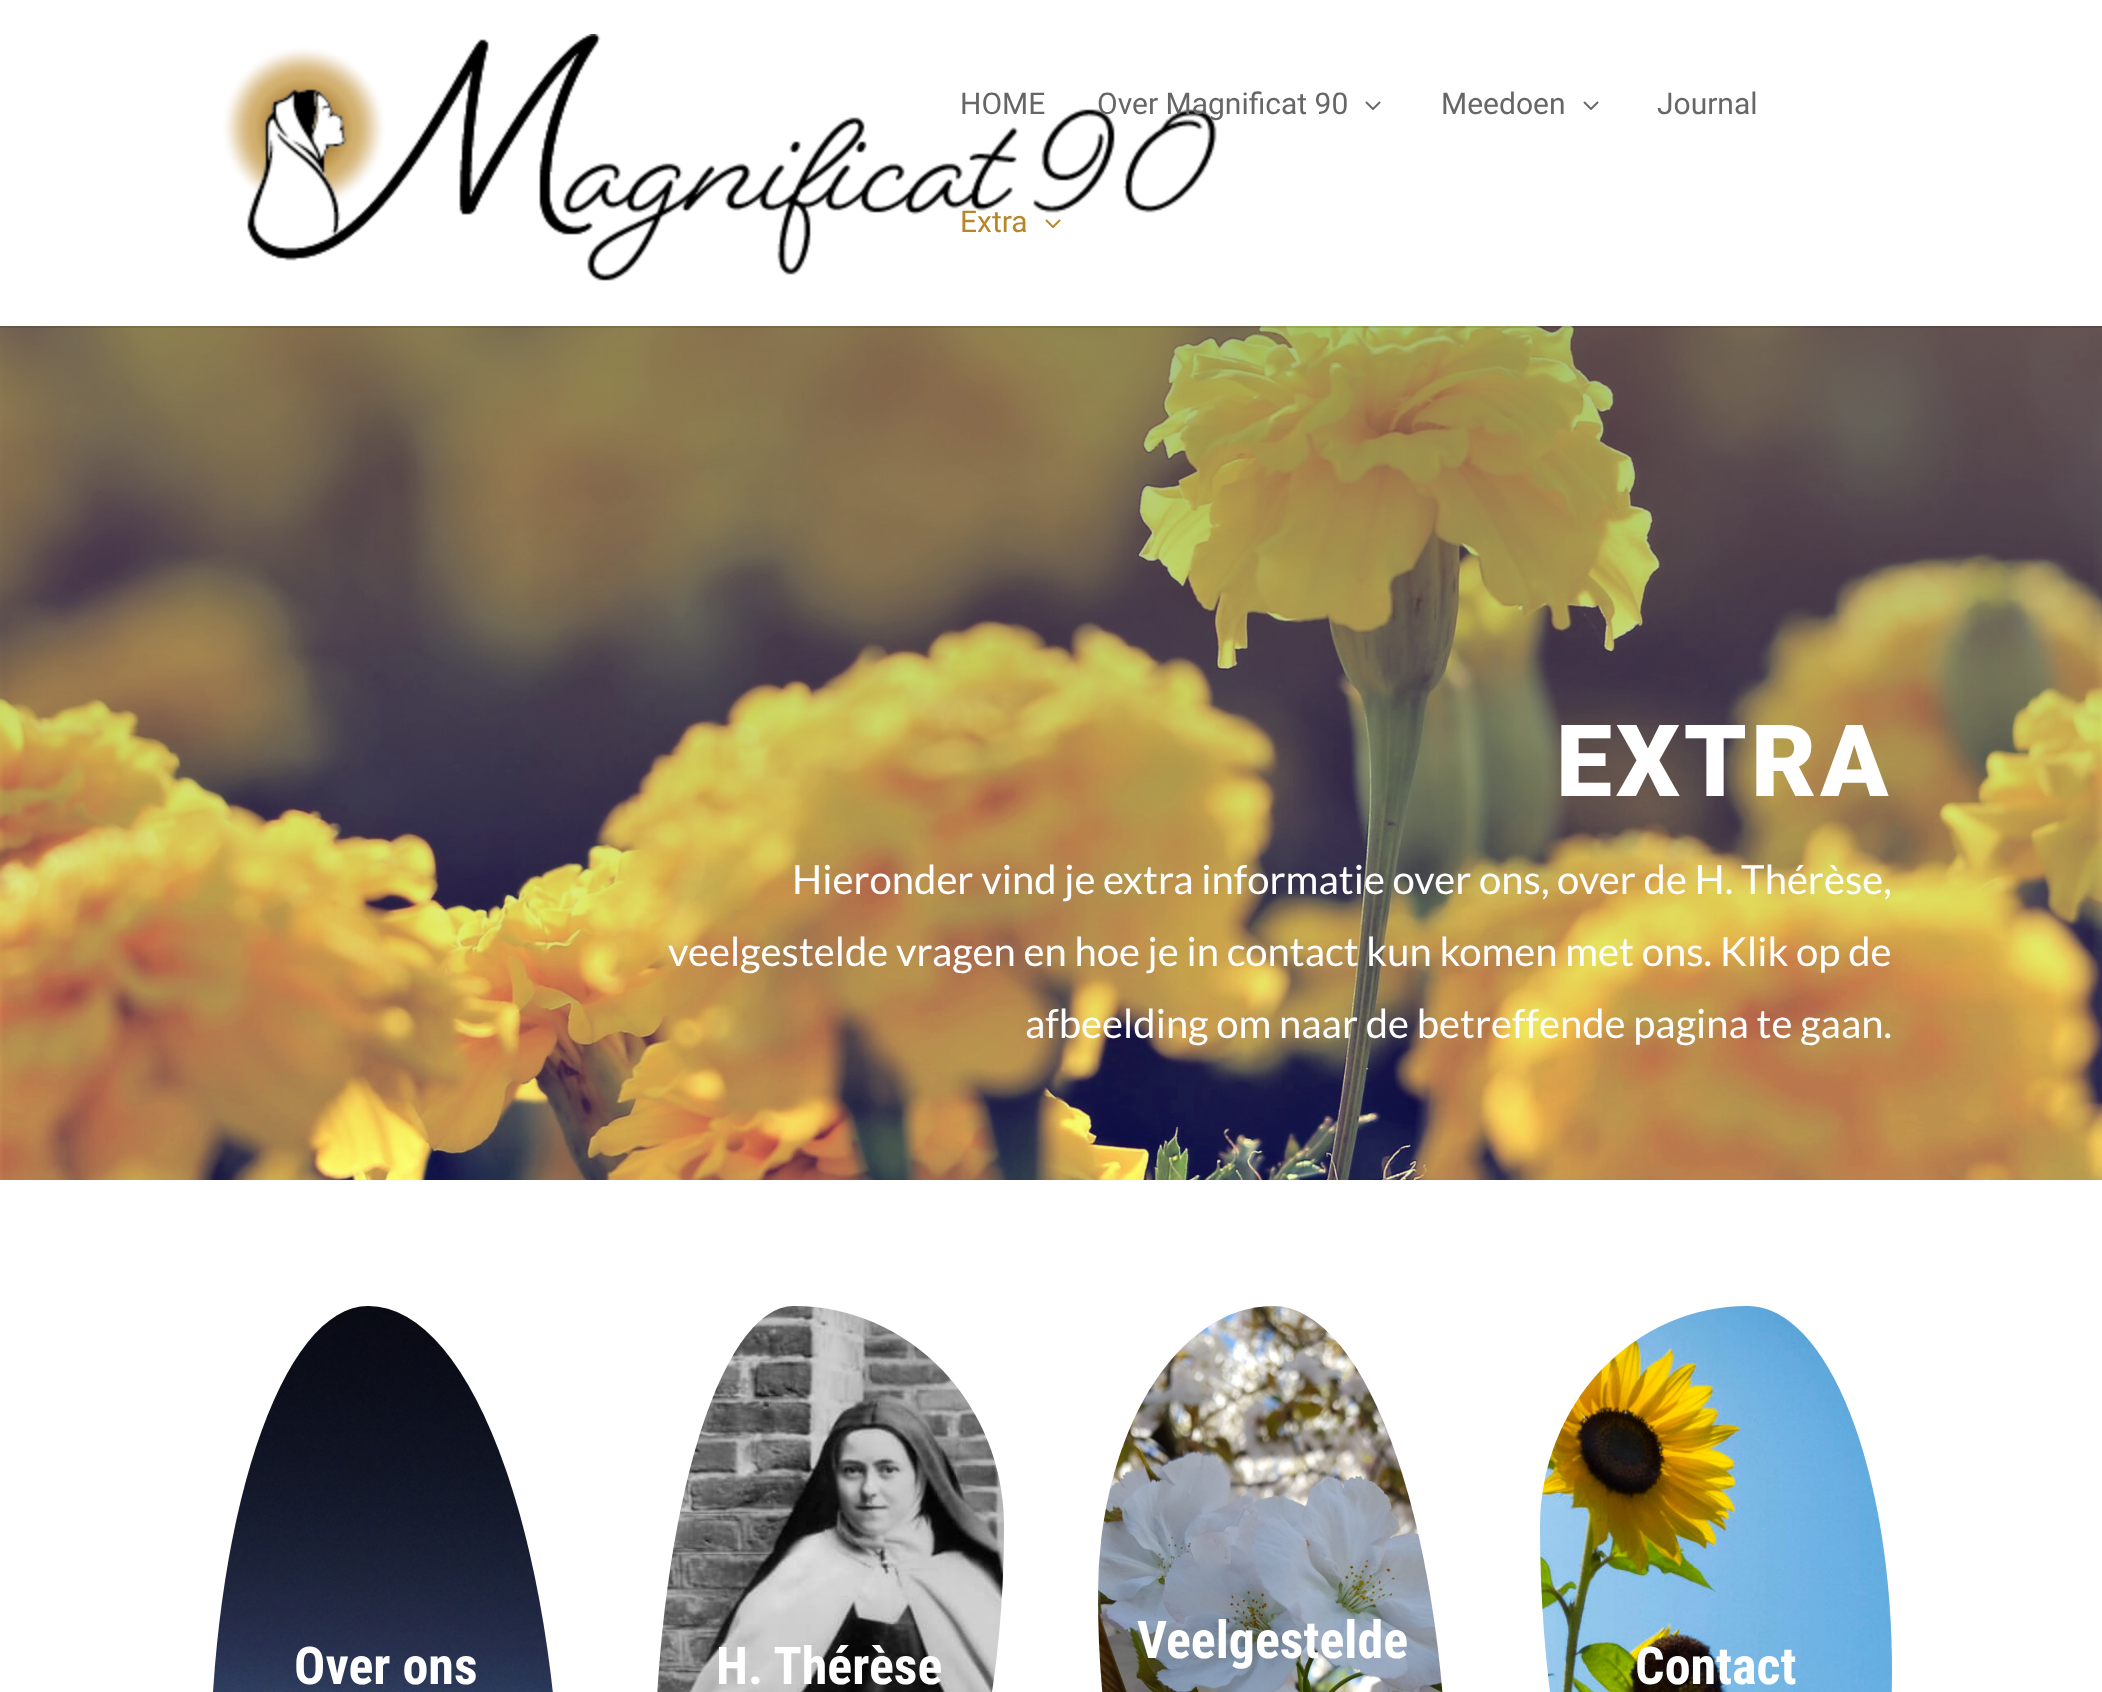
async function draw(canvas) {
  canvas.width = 2102;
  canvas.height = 1692;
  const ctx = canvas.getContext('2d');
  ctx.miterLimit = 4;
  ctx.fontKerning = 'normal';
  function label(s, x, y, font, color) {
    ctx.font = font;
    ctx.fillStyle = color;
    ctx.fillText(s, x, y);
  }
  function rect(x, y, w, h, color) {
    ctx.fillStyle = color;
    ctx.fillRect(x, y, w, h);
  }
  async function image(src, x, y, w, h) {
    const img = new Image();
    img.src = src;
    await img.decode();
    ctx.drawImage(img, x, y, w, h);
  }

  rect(0, 0, 2102, 1692, '#fff');
  await image('assets/img4.png', 0, 326, 2102, 854);
  rect(0, 326, 2102, 2, '#0000001a');
  await image('assets/img1.png', 223, 34, 994, 247);
  label('HOME', 960, 114, '30px Roboto', '#666');
  label('Over Magnificat 90', 1097, 114, '30px Roboto', '#666');
  await image('assets/img2.png', 1365, 101, 16, 9);
  label('Meedoen', 1441, 114, '30px Roboto', '#666');
  await image('assets/img2.png', 1583, 101, 16, 9);
  label('Journal', 1657, 114, '30px Roboto', '#666');
  label('Extra', 960, 232, '30px Roboto', '#b78628');
  await image('assets/img3.png', 1045, 219, 16, 9);
  ctx.letterSpacing = '4px';
  label('EXTRA', 1556, 796, '900 100px Roboto', '#fff');
  ctx.letterSpacing = '0px';
  label('Hieronder vind je extra informatie over ons, over de H. Thérèse,', 792, 894, '40px Lato', '#fff');
  label('veelgestelde vragen en hoe je in contact kun komen met ons. Klik op de', 668, 966, '40px Lato', '#fff');
  label('afbeelding om naar de betreffende pagina te gaan.', 1025, 1038, '40px Lato', '#fff');
  await image('assets/img5.png', 213, 1306, 340, 386);
  label('Over ons', 294, 1684, 'bold 52px Roboto Condensed', '#fff');
  await image('assets/img6.png', 657, 1306, 347, 386);
  label('H. Thérèse', 716, 1684, 'bold 52px Roboto Condensed', '#fff');
  await image('assets/img7.png', 1098, 1306, 345, 386);
  label('Veelgestelde', 1137, 1658, 'bold 52px Roboto Condensed', '#fff');
  await image('assets/img8.png', 1540, 1306, 352, 386);
  label('Contact', 1635, 1684, 'bold 52px Roboto Condensed', '#fff');
}

draw(document.querySelector('canvas'));
